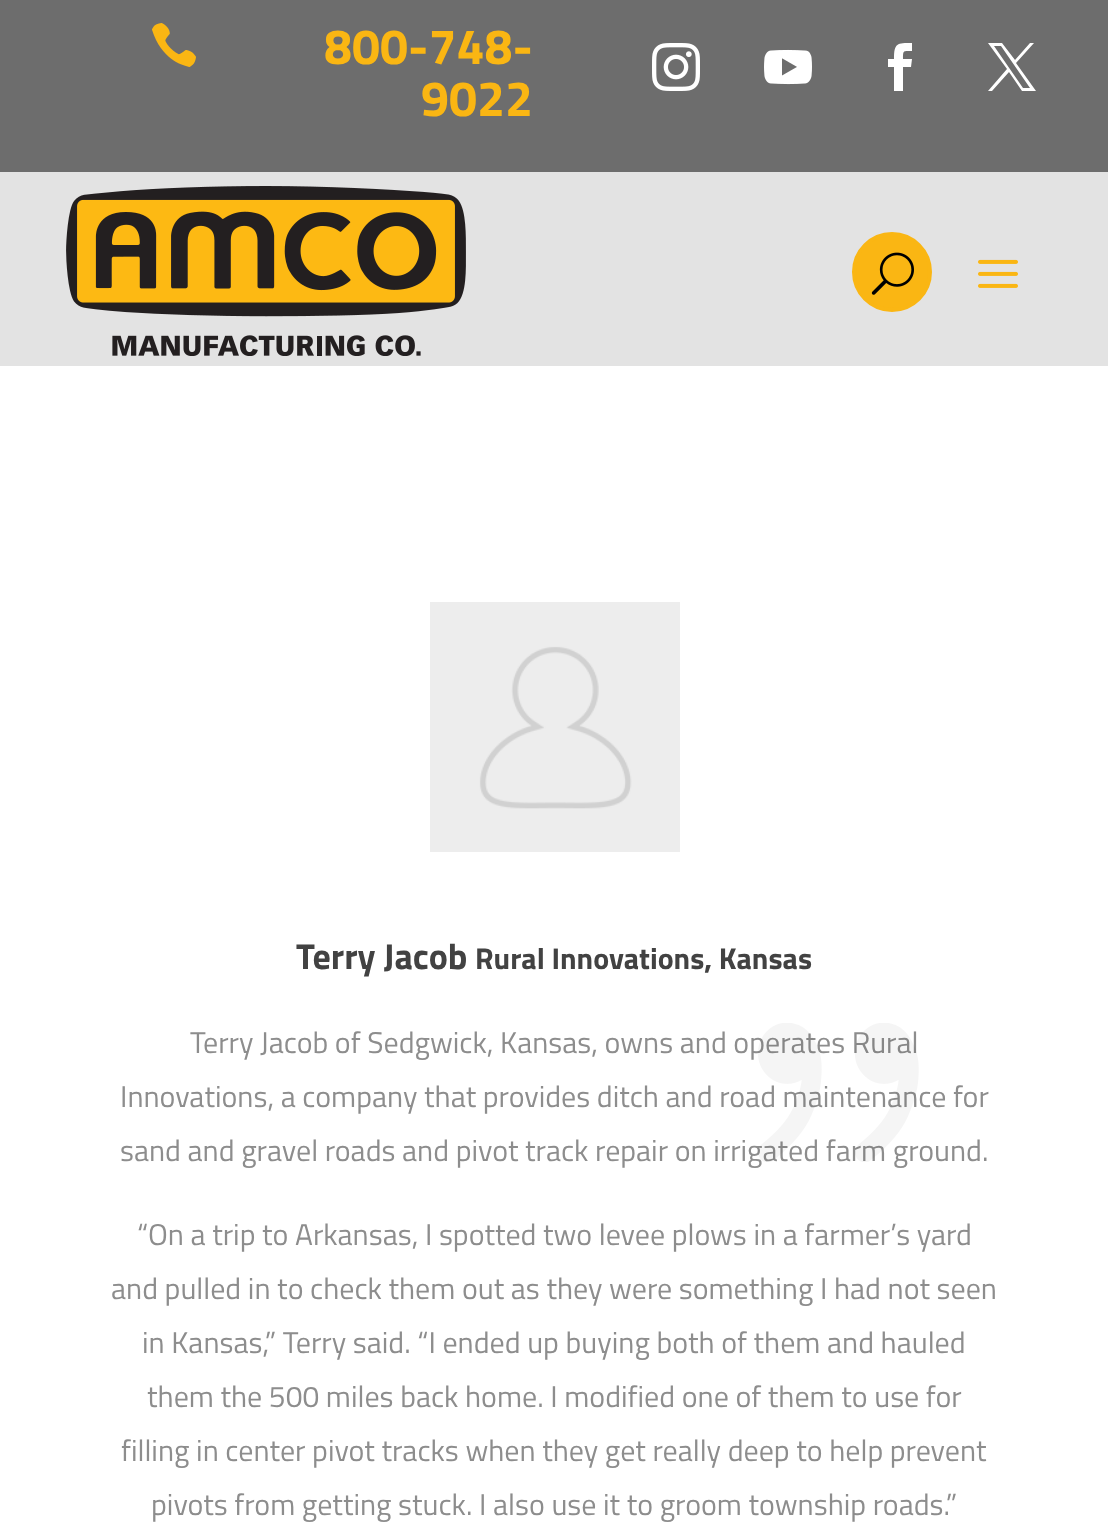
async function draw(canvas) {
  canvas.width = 1108;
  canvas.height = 1523;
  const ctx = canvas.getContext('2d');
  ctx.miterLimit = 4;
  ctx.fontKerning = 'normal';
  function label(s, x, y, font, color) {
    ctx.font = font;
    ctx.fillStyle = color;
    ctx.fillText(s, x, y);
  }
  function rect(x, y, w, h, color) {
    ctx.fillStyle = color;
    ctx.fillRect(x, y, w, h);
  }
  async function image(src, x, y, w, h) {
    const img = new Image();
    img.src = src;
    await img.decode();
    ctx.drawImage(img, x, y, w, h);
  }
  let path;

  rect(0, 0, 1108, 1523, '#fff');
  rect(0, 0, 1108, 172, '#6d6d6d');
  await image('assets/img1.png', 152, 23, 44, 44);
  label('800-748-', 324, 64, 'bold 50px Titillium Web', '#fab613');
  label('9022', 421, 116, 'bold 50px Titillium Web', '#fab613');
  await image('assets/img2.png', 652, 43, 48, 48);
  await image('assets/img3.png', 764, 49, 48, 36);
  ctx.fillStyle = '#fff';
  path = new Path2D('M894 91H903V67H911L912 59H903C903 50 903 51 912 51V43C897 43 894 43 894 59H888V67H894Z');
  ctx.fill(path);
  path = new Path2D('M988 43L1007 69L988 91H992L1009 72L1022 91H1036L1016 63L1034 43H1030L1015 60L1002 43ZM994 46H1001L1030 88H1023Z');
  ctx.fill(path);
  rect(0, 172, 1108, 194, '#e3e3e3');
  await image('assets/img4.png', 66, 186, 400, 170);
  ctx.fillStyle = '#fab613';
  ctx.beginPath();
  ctx.arc(892, 272, 38, 0, 2 * Math.PI);
  ctx.fill();
  ctx.strokeStyle = '#fab613';
  ctx.lineWidth = 4;
  ctx.stroke();
  await image('assets/img5.png', 871, 252, 43, 43);
  await image('assets/img6.png', 978, 259, 40, 29);
  await image('assets/img7.png', 430, 602, 250, 250);
  label('Terry Jacob', 296, 969, 'bold 36px Titillium Web', '#424242');
  label('Rural Innovations, Kansas', 475, 969, 'bold 30px Titillium Web', '#424242');
  label('Terry Jacob of Sedgwick, Kansas, owns and operates Rural', 190, 1053, '30px Titillium Web', '#8d8d8d');
  label('Innovations, a company that provides ditch and road maintenance for', 120, 1107, '30px Titillium Web', '#8d8d8d');
  label('sand and gravel roads and pivot track repair on irrigated farm ground.', 120, 1161, '30px Titillium Web', '#8d8d8d');
  await image('assets/img8.png', 758, 1023, 161, 139);
  label('“On a trip to Arkansas, I spotted two levee plows in a farmer’s yard', 137, 1245, '30px Titillium Web', '#8d8d8d');
  label('and pulled in to check them out as they were something I had not seen', 111, 1299, '30px Titillium Web', '#8d8d8d');
  label('in Kansas,” Terry said. “I ended up buying both of them and hauled', 142, 1353, '30px Titillium Web', '#8d8d8d');
  label('them the 500 miles back home. I modified one of them to use for', 147, 1407, '30px Titillium Web', '#8d8d8d');
  label('filling in center pivot tracks when they get really deep to help prevent', 121, 1461, '30px Titillium Web', '#8d8d8d');
  label('pivots from getting stuck. I also use it to groom township roads.”', 151, 1515, '30px Titillium Web', '#8d8d8d');
}

draw(document.querySelector('canvas'));
